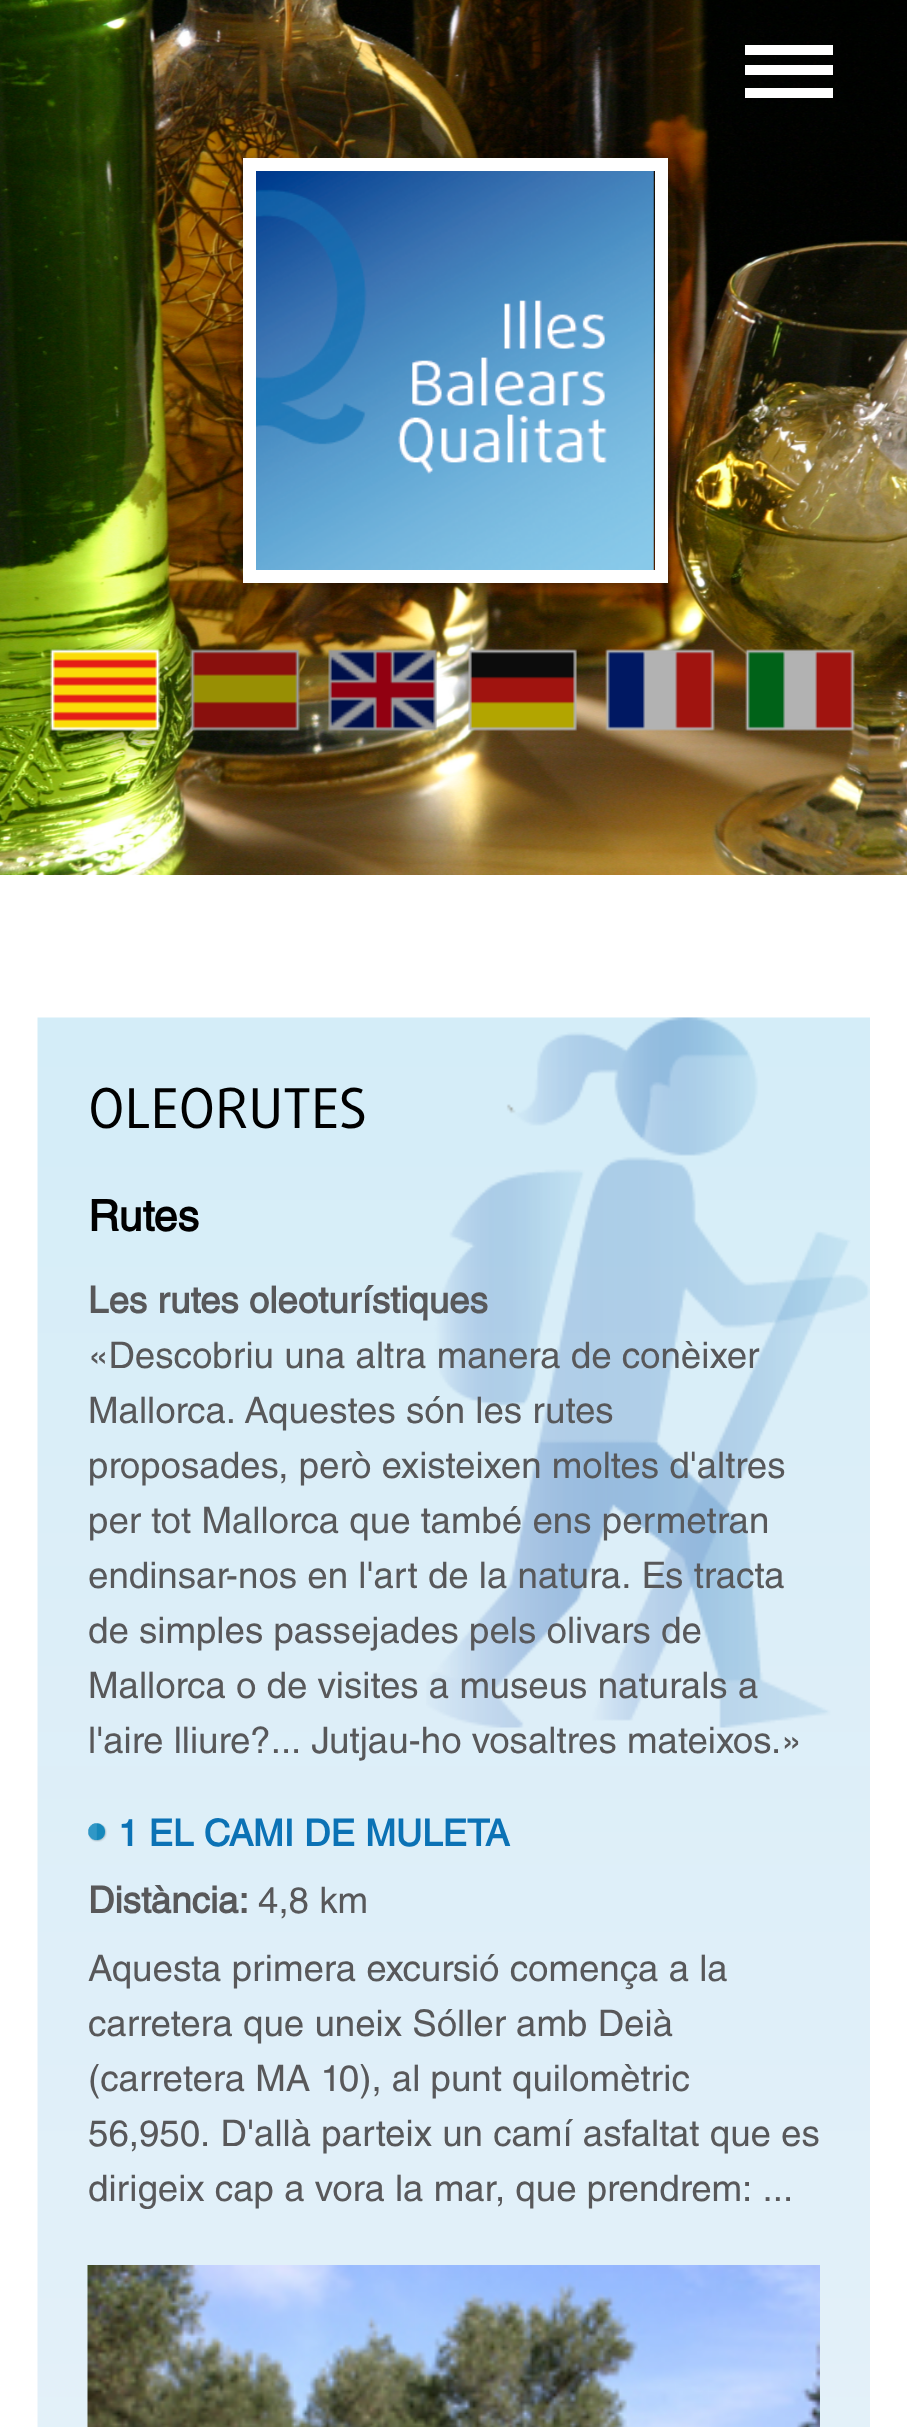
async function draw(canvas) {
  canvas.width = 907;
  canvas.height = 2427;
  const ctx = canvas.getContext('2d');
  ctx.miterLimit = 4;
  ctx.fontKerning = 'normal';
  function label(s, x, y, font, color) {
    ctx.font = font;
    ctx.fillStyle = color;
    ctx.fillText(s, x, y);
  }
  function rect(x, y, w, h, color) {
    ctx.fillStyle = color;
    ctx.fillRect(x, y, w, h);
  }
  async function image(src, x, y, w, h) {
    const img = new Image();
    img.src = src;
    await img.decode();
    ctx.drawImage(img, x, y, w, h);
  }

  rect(0, 0, 907, 2427, '#fff');
  await image('assets/img1.png', 0, 0, 907, 875);
  rect(745, 45, 88, 10, '#fff');
  rect(745, 65, 88, 10, '#fff');
  rect(745, 88, 88, 10, '#fff');
  ctx.fillStyle = '#00000066';
  ctx.filter = 'blur(5px)';
  ctx.beginPath();
  ctx.rect(245, 160, 425, 425);
  ctx.fill();
  ctx.filter = 'none';
  await image('assets/img2.png', 256, 171, 398, 399);
  ctx.strokeStyle = '#fff';
  ctx.lineWidth = 13;
  ctx.strokeRect(249.5, 164.5, 412, 412);
  await image('assets/img3.png', 36, 640, 140, 115);
  await image('assets/img4.png', 190, 649, 110, 82);
  await image('assets/img5.png', 328, 649, 109, 82);
  await image('assets/img6.png', 468, 649, 109, 82);
  await image('assets/img7.png', 605, 649, 110, 82);
  await image('assets/img8.png', 745, 649, 110, 82);
  await image('assets/img9.png', 426, 1017, 444, 711);
  await image('assets/img10.png', 37, 1017, 833, 1410);
  label('OLEORUTES', 88, 1128, '55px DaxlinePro', '#000');
  label('Rutes', 88, 1231, 'bold 43px Helvetica', '#000');
  label('Les rutes oleoturístiques', 88, 1313, 'bold 36.7px Helvetica', '#58585a');
  label('«Descobriu una altra manera de conèixer', 88, 1368, '36.7px Helvetica', '#58585a');
  label('Mallorca. Aquestes són les rutes', 88, 1423, '36.7px Helvetica', '#58585a');
  label('proposades, però existeixen moltes d\'altres', 88, 1478, '36.7px Helvetica', '#58585a');
  label('per tot Mallorca que també ens permetran', 88, 1533, '36.7px Helvetica', '#58585a');
  label('endinsar-nos en l\'art de la natura. Es tracta', 88, 1588, '36.7px Helvetica', '#58585a');
  label('de simples passejades pels olivars de', 88, 1643, '36.7px Helvetica', '#58585a');
  label('Mallorca o de visites a museus naturals a', 88, 1698, '36.7px Helvetica', '#58585a');
  label('l\'aire lliure?... Jutjau-ho vosaltres mateixos.»', 88, 1753, '36.7px Helvetica', '#58585a');
  await image('assets/img11.png', 88, 1823, 19, 19);
  label('1 EL CAMI DE MULETA', 118, 1846, 'bold 36.7px Helvetica', '#0b72b5');
  label('Distància:', 88, 1913, 'bold 36.7px Helvetica', '#58585a');
  label('4,8 km', 258, 1913, '36.7px Helvetica', '#58585a');
  label('Aquesta primera excursió comença a la', 88, 1981, '36.7px Helvetica', '#58585a');
  label('carretera que uneix Sóller amb Deià', 88, 2036, '36.7px Helvetica', '#58585a');
  label('(carretera MA 10), al punt quilomètric', 88, 2091, '36.7px Helvetica', '#58585a');
  label('56,950. D\'allà parteix un camí asfaltat que es', 88, 2146, '36.7px Helvetica', '#58585a');
  label('dirigeix cap a vora la mar, que prendrem: ...', 88, 2201, '36.7px Helvetica', '#58585a');
  await image('assets/img12.png', 87, 2265, 733, 162);
}

draw(document.querySelector('canvas'));
